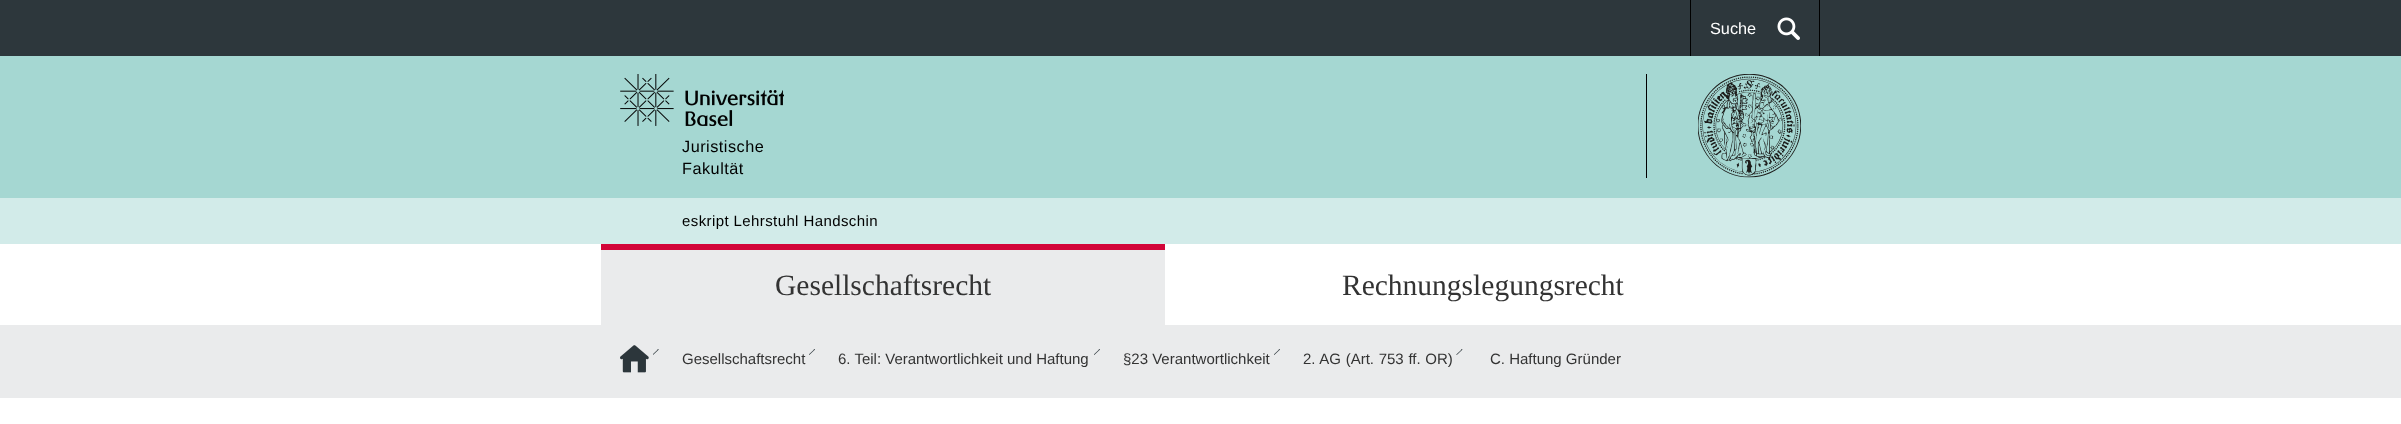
async function draw(canvas) {
  canvas.width = 2401;
  canvas.height = 424;
  const ctx = canvas.getContext('2d');
  ctx.miterLimit = 4;
  ctx.fontKerning = 'normal';
  function label(s, x, y, font, color) {
    ctx.font = font;
    ctx.fillStyle = color;
    ctx.fillText(s, x, y);
  }
  function rect(x, y, w, h, color) {
    ctx.fillStyle = color;
    ctx.fillRect(x, y, w, h);
  }
  async function image(src, x, y, w, h) {
    const img = new Image();
    img.src = src;
    await img.decode();
    ctx.drawImage(img, x, y, w, h);
  }

  rect(0, 0, 2401, 424, '#fff');
  rect(0, 0, 2401, 56, '#2d373c');
  rect(1819, 0, 1, 56, '#000');
  rect(1690, 0, 1, 56, '#000');
  label('Suche', 1710, 34, '16.25px Liberation Sans', '#fff');
  await image('assets/img1.png', 1777, 17, 23, 23);
  rect(0, 56, 2401, 142, '#a5d7d2');
  await image('assets/img2.png', 620, 74, 164, 52);
  rect(1646, 74, 1, 104, '#000');
  await image('assets/img3.png', 1698, 74, 103, 104);
  ctx.letterSpacing = '0.5px';
  label('Juristische', 682, 152, '16.25px Liberation Sans', '#000');
  label('Fakultät', 682, 174, '16.25px Liberation Sans', '#000');
  rect(0, 198, 2401, 46, '#d2ebe9');
  ctx.letterSpacing = '0.4px';
  label('eskript Lehrstuhl Handschin', 682, 226, '15px Liberation Sans', '#000');
  rect(601, 250, 564, 75, '#eaebec');
  rect(601, 244, 564, 6, '#d20639');
  ctx.letterSpacing = '0px';
  label('Gesellschaftsrecht', 775, 295, '29.5px Liberation Serif', '#333');
  label('Rechnungslegungsrecht', 1342, 295, '29.5px Liberation Serif', '#333');
  rect(0, 325, 2401, 73, '#eaebec');
  await image('assets/img4.png', 620, 345, 29, 28);
  await image('assets/img5.png', 653, 349, 6, 6);
  label('Gesellschaftsrecht', 682, 364, '15px Liberation Sans', '#333');
  await image('assets/img6.png', 809, 349, 6, 6);
  label('6. Teil: Verantwortlichkeit und Haftung', 838, 364, '15px Liberation Sans', '#333');
  await image('assets/img6.png', 1094, 349, 6, 6);
  label('§23 Verantwortlichkeit', 1123, 364, '15px Liberation Sans', '#333');
  await image('assets/img6.png', 1274, 349, 6, 6);
  ctx.wordSpacing = '0.5px';
  label('2. AG (Art. 753 ff. OR)', 1303, 364, '15px Liberation Sans', '#333');
  await image('assets/img7.png', 1456, 349, 7, 6);
  ctx.wordSpacing = '0px';
  label('C. Haftung Gründer', 1490, 364, '15px Liberation Sans', '#333');
}

draw(document.querySelector('canvas'));
